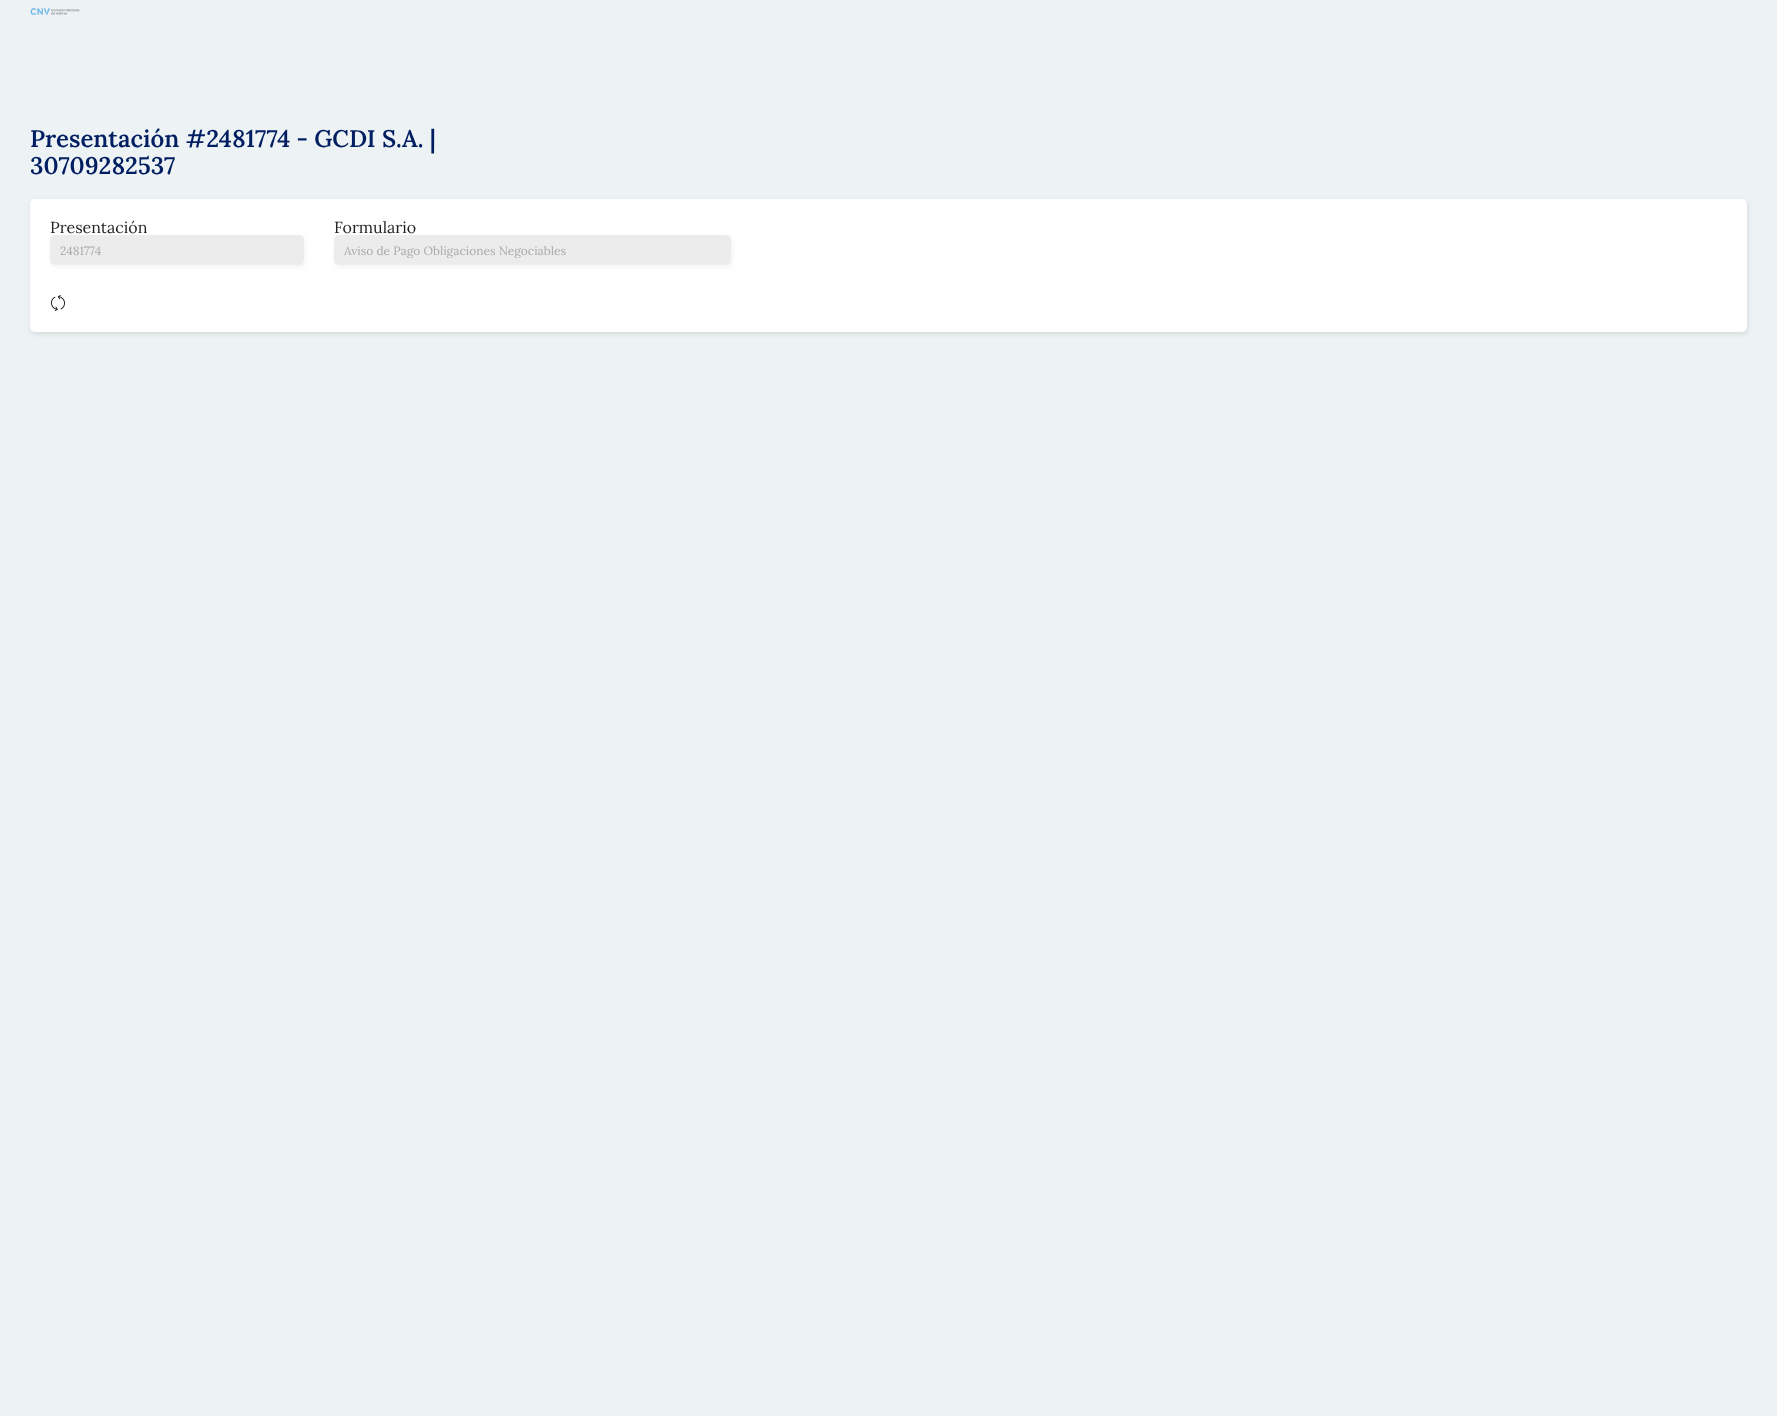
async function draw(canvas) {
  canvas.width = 1777;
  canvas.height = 1416;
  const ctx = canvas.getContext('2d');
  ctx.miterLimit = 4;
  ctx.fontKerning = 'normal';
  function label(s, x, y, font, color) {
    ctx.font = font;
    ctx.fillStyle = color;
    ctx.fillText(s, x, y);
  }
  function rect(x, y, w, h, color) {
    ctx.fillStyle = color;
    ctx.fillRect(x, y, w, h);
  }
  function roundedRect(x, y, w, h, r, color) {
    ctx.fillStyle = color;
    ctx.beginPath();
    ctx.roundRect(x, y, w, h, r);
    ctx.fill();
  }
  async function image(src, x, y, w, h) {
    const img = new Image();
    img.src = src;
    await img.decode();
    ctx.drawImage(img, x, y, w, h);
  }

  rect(0, 0, 1777, 1416, '#edf3f4');
  await image('assets/img1.png', 30, 8, 50, 7);
  label('Presentación #2481774 - GCDI S.A. |', 30, 147, '600 24px Lora', '#001e61');
  label('30709282537', 30, 174, '600 24px Lora', '#001e61');
  ctx.fillStyle = '#0000001a';
  ctx.filter = 'blur(2.5px)';
  ctx.beginPath();
  ctx.roundRect(31, 201, 1717, 133, 5);
  ctx.fill();
  ctx.filter = 'none';
  roundedRect(30, 199, 1717, 133, 5, '#fff');
  label('Presentación', 50, 233, '16px Lora', '#231f20');
  ctx.fillStyle = '#0000000d';
  ctx.filter = 'blur(2.5px)';
  ctx.beginPath();
  ctx.roundRect(51, 237, 254, 30, 5);
  ctx.fill();
  ctx.filter = 'none';
  roundedRect(50, 235, 254, 30, 5, '#ececec');
  label('2481774', 60, 255, '12px Lora', '#aaa');
  label('Formulario', 334, 233, '16px Lora', '#231f20');
  ctx.fillStyle = '#0000000d';
  ctx.filter = 'blur(2.5px)';
  ctx.beginPath();
  ctx.roundRect(335, 237, 397, 30, 5);
  ctx.fill();
  ctx.filter = 'none';
  roundedRect(334, 235, 397, 30, 5, '#ececec');
  ctx.save();
  ctx.beginPath();
  ctx.rect(344, 243, 377, 15);
  ctx.clip();
  label('Aviso de Pago Obligaciones Negociables', 344, 255, '12px Lora', '#aaa');
  ctx.restore();
  await image('assets/img2.png', 50, 295, 15, 16);
}

draw(document.querySelector('canvas'));
